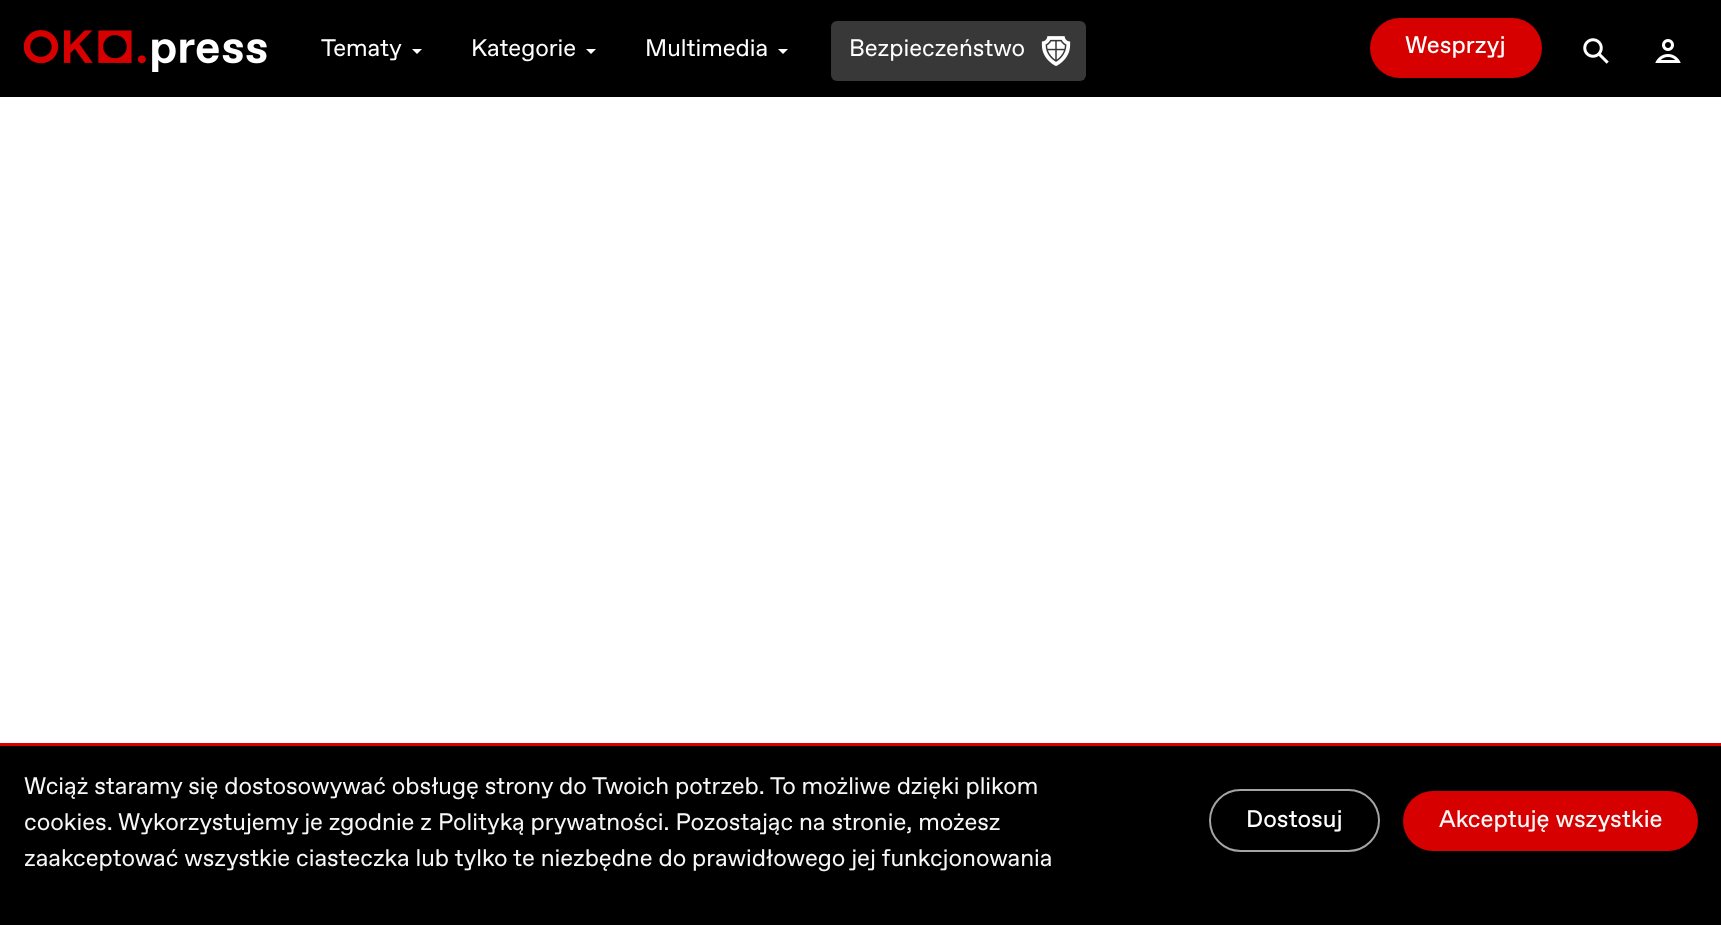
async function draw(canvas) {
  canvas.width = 1721;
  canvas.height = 925;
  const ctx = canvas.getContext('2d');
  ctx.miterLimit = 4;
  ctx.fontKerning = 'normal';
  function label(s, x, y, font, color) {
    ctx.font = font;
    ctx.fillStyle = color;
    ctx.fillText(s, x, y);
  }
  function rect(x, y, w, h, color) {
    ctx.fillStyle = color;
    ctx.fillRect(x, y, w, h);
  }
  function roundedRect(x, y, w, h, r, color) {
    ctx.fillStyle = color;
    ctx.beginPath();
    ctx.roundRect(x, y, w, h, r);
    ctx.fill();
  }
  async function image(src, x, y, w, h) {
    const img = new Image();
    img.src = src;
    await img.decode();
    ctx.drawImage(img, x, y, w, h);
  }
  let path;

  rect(0, 0, 1721, 925, '#fff');
  rect(0, 0, 1721, 97, '#000');
  await image('assets/img1.png', 24, 30, 243, 42);
  label('Tematy', 321, 56, '300 24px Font', '#fff');
  path = new Path2D('M412 49L417 54L422 49Z');
  ctx.fill(path);
  label('Kategorie', 471, 56, '300 24px Font', '#fff');
  path = new Path2D('M586 49L591 54L596 49Z');
  ctx.fill(path);
  label('Multimedia', 645, 56, '300 24px Font', '#fff');
  path = new Path2D('M778 49L783 54L788 49Z');
  ctx.fill(path);
  roundedRect(831, 21, 255, 60, 6, '#383838');
  label('Bezpieczeństwo', 849, 56, '300 24px Font', '#fff');
  await image('assets/img2.png', 1041, 36, 30, 30);
  roundedRect(1370, 18, 172, 60, 30, '#d60000');
  label('Wesprzyj', 1405, 53, '24px Font', '#fff');
  await image('assets/img3.png', 1583, 38, 26, 26);
  await image('assets/img4.png', 1655, 39, 26, 24);
  rect(0, 746, 1721, 179, '#000');
  rect(0, 743, 1721, 3, '#d60000');
  label('Wciąż staramy się dostosowywać obsługę strony do Twoich potrzeb. To możliwe dzięki plikom', 24, 794, '300 24px Font', '#f7f7f7');
  label('cookies. Wykorzystujemy je zgodnie z Polityką prywatności. Pozostając na stronie, możesz', 24, 830, '300 24px Font', '#f7f7f7');
  label('zaakceptować wszystkie ciasteczka lub tylko te niezbędne do prawidłowego jej funkcjonowania', 24, 866, '300 24px Font', '#f7f7f7');
  ctx.beginPath();
  ctx.roundRect(1210, 790, 169, 61, 30.5);
  ctx.strokeStyle = '#a4a4a4';
  ctx.lineWidth = 2;
  ctx.stroke();
  label('Dostosuj', 1246, 827, '24px Font', '#fff');
  roundedRect(1403, 791, 295, 60, 30, '#d60000');
  label('Akceptuję wszystkie', 1439, 827, '24px Font', '#f7f7f7');
}

draw(document.querySelector('canvas'));
